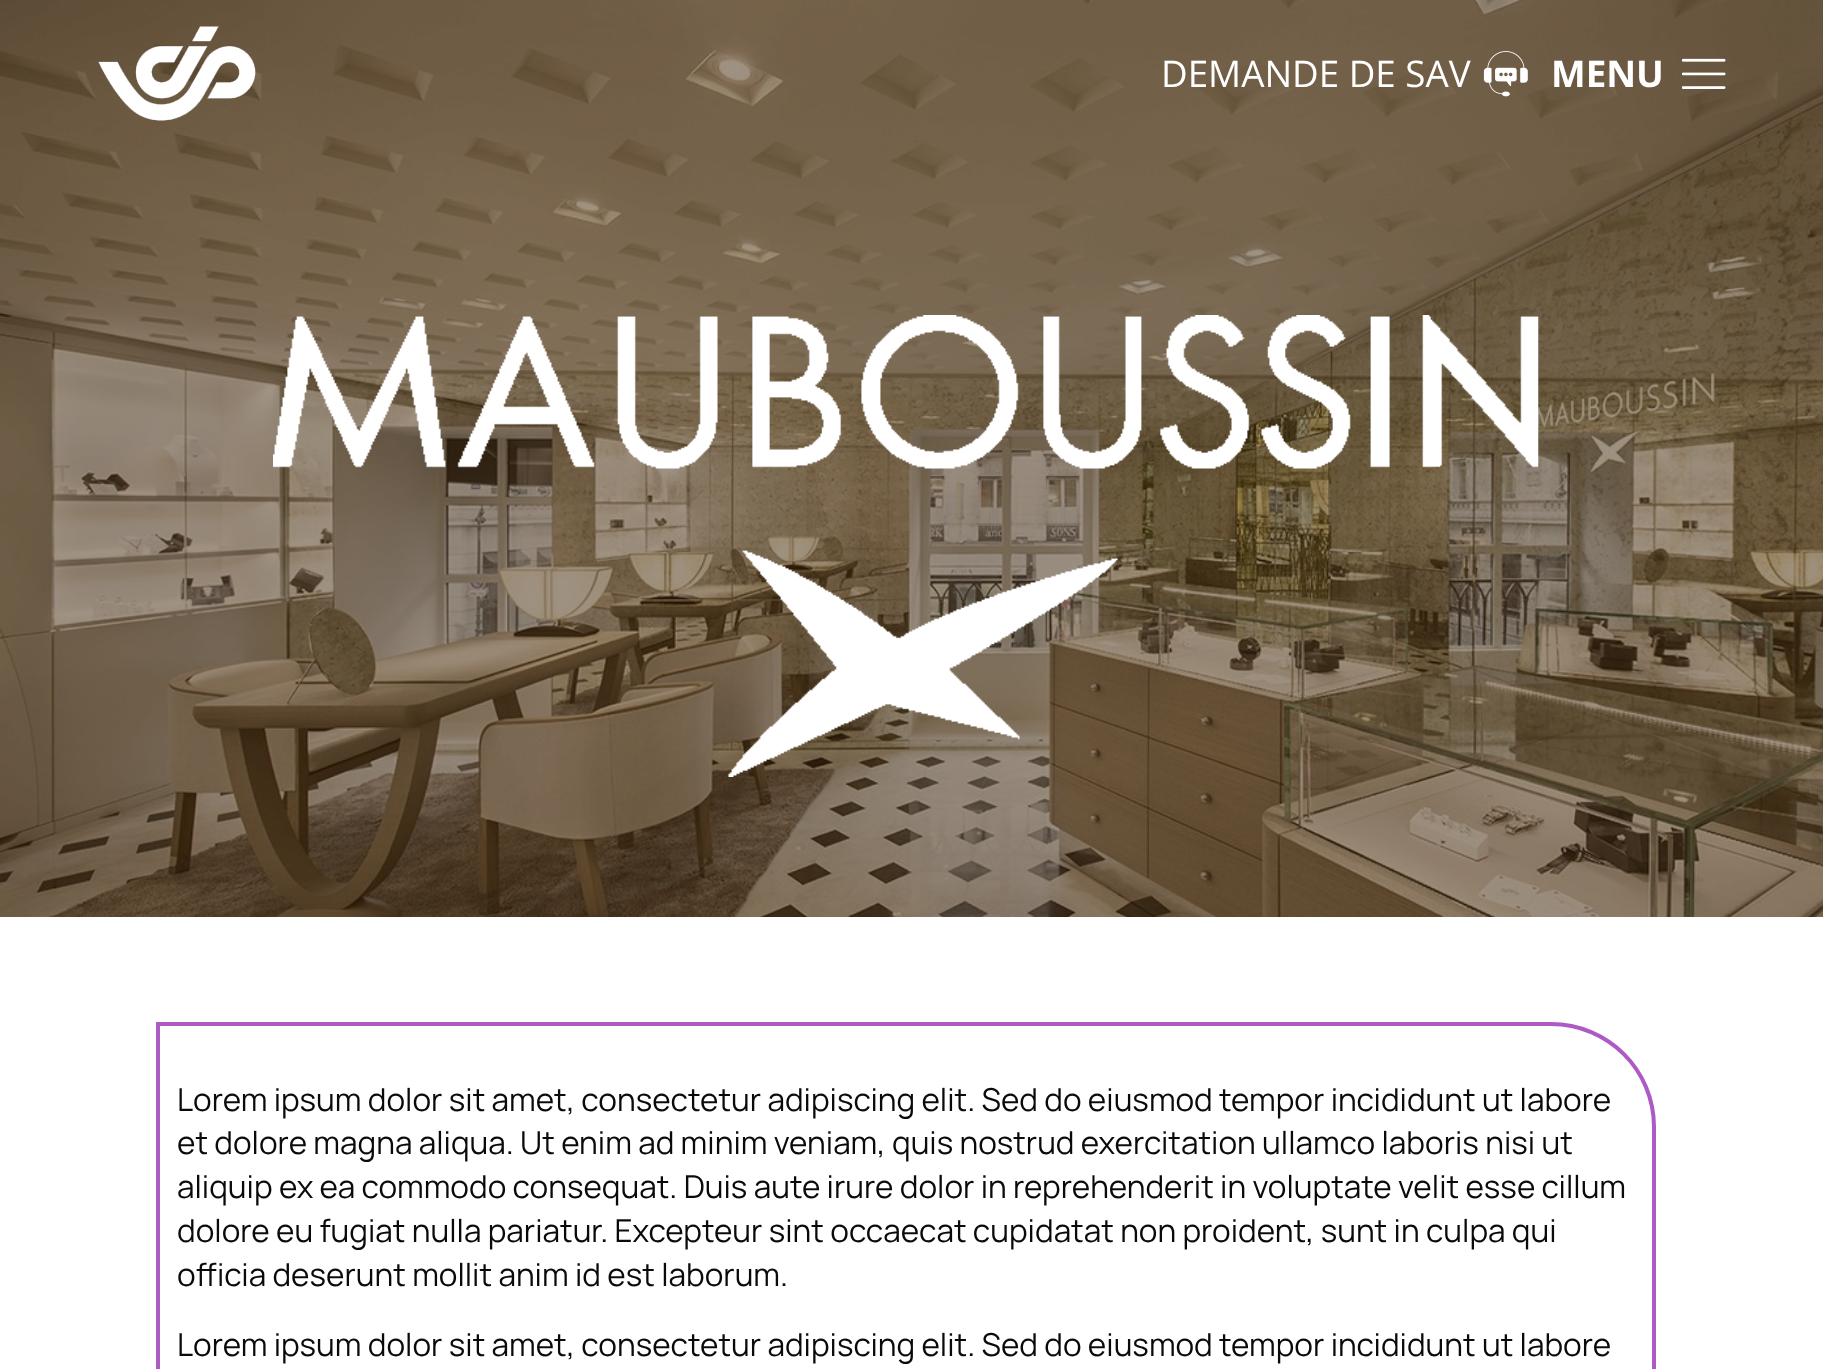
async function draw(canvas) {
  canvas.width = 1823;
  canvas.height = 1369;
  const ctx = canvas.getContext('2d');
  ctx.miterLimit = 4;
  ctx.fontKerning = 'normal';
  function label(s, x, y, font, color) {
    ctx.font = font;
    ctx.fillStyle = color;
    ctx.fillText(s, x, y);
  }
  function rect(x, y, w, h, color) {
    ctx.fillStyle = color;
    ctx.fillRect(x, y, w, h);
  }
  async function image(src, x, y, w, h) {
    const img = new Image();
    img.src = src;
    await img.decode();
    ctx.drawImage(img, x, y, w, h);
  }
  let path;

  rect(0, 0, 1823, 1369, '#fff');
  await image('assets/img4.png', 0, 0, 1823, 917);
  await image('assets/img1.png', 98, 26, 158, 95);
  label('DEMANDE DE SAV', 1161, 87, '36.75px Open Sans', '#fff');
  await image('assets/img2.png', 1483, 51, 45, 46);
  label('MENU', 1551, 87, 'bold 36.75px Open Sans', '#fff');
  await image('assets/img3.png', 1682, 58, 44, 31);
  await image('assets/img5.png', 273, 315, 1266, 462);
  path = new Path2D('M158 1024H1551C1608 1024 1654 1070 1654 1127V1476H261C204 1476 158 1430 158 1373Z');
  ctx.strokeStyle = '#ad5ac5';
  ctx.lineWidth = 4;
  ctx.stroke(path);
  label('Lorem ipsum dolor sit amet, consectetur adipiscing elit. Sed do eiusmod tempor incididunt ut labore', 177, 1111, '31.5px Manrope', '#0a0a0a');
  label('et dolore magna aliqua. Ut enim ad minim veniam, quis nostrud exercitation ullamco laboris nisi ut', 177, 1154, '31.5px Manrope', '#0a0a0a');
  label('aliquip ex ea commodo consequat. Duis aute irure dolor in reprehenderit in voluptate velit esse cillum', 177, 1198, '31.5px Manrope', '#0a0a0a');
  label('dolore eu fugiat nulla pariatur. Excepteur sint occaecat cupidatat non proident, sunt in culpa qui', 177, 1242, '31.5px Manrope', '#0a0a0a');
  label('officia deserunt mollit anim id est laborum.', 177, 1286, '31.5px Manrope', '#0a0a0a');
  label('Lorem ipsum dolor sit amet, consectetur adipiscing elit. Sed do eiusmod tempor incididunt ut labore', 177, 1356, '31.5px Manrope', '#0a0a0a');
}

draw(document.querySelector('canvas'));
